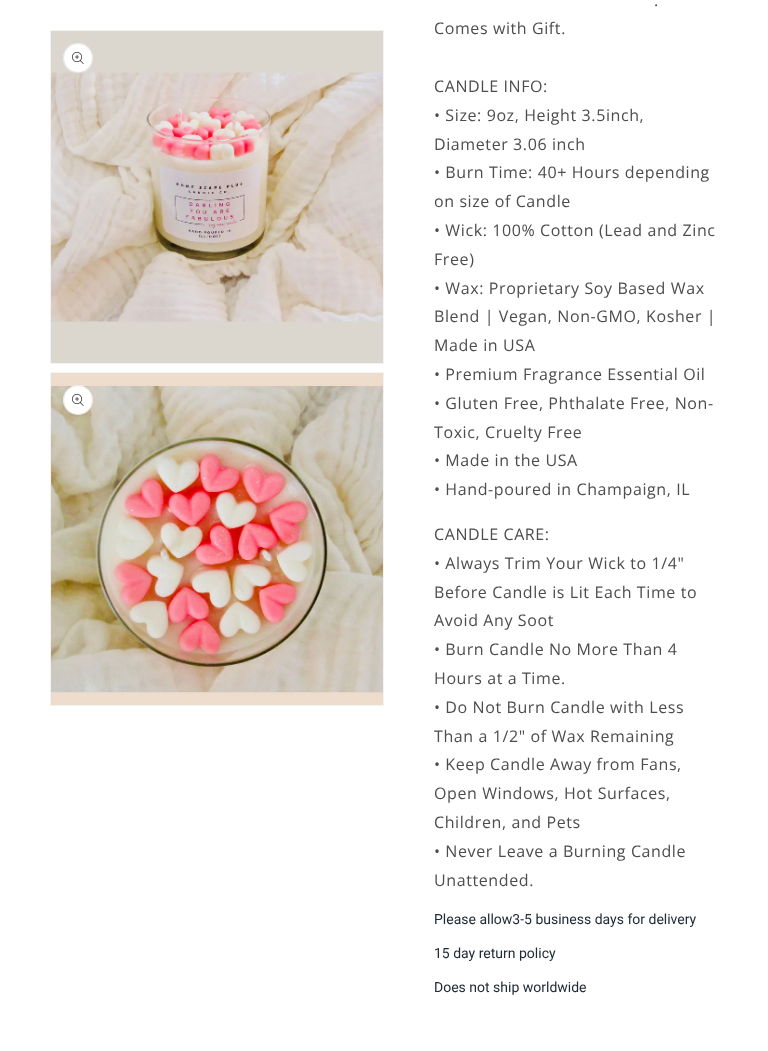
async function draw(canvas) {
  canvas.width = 768;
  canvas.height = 1051;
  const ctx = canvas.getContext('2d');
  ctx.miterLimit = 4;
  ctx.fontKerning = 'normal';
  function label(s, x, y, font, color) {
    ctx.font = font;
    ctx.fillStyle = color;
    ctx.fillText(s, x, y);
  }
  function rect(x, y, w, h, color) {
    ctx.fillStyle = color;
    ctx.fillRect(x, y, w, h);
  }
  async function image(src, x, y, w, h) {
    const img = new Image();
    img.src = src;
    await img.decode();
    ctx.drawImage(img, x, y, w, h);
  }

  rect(0, 0, 768, 1051, '#fff');
  ctx.strokeStyle = '#f3f3f3';
  ctx.strokeRect(50.5, 30.5, 333, 333);
  await image('assets/img1.png', 51, 31, 332, 332);
  ctx.beginPath();
  ctx.arc(78, 58, 15, 0, 2 * Math.PI);
  ctx.fill();
  ctx.beginPath();
  ctx.arc(78, 58, 14.5, 0, 2 * Math.PI);
  ctx.strokeStyle = '#1212121a';
  ctx.stroke();
  await image('assets/img2.png', 72, 52, 12, 12);
  ctx.strokeStyle = '#f3f3f3';
  ctx.strokeRect(50.5, 372.5, 333, 333);
  await image('assets/img3.png', 51, 373, 332, 332);
  ctx.beginPath();
  ctx.arc(78, 400, 15, 0, 2 * Math.PI);
  ctx.fill();
  ctx.beginPath();
  ctx.arc(78, 400, 14.5, 0, 2 * Math.PI);
  ctx.strokeStyle = '#1212121a';
  ctx.stroke();
  await image('assets/img2.png', 72, 394, 12, 12);
  ctx.letterSpacing = '0.6px';
  label('.', 654, 6, '16px Open Sans', '#4d4d4d');
  label('Comes with Gift.', 434, 34, '16px Open Sans', '#4d4d4d');
  label('CANDLE INFO:', 434, 92, '16px Open Sans', '#4d4d4d');
  label('• Size: 9oz, Height 3.5inch,', 434, 121, '16px Open Sans', '#4d4d4d');
  label('Diameter 3.06 inch', 434, 150, '16px Open Sans', '#4d4d4d');
  label('• Burn Time: 40+ Hours depending', 434, 178, '16px Open Sans', '#4d4d4d');
  label('on size of Candle', 434, 207, '16px Open Sans', '#4d4d4d');
  label('• Wick: 100% Cotton (Lead and Zinc', 434, 236, '16px Open Sans', '#4d4d4d');
  label('Free)', 434, 265, '16px Open Sans', '#4d4d4d');
  label('• Wax: Proprietary Soy Based Wax', 434, 294, '16px Open Sans', '#4d4d4d');
  label('Blend | Vegan, Non-GMO, Kosher |', 434, 322, '16px Open Sans', '#4d4d4d');
  label('Made in USA', 434, 351, '16px Open Sans', '#4d4d4d');
  label('• Premium Fragrance Essential Oil', 434, 380, '16px Open Sans', '#4d4d4d');
  label('• Gluten Free, Phthalate Free, Non-', 434, 409, '16px Open Sans', '#4d4d4d');
  label('Toxic, Cruelty Free', 434, 438, '16px Open Sans', '#4d4d4d');
  label('• Made in the USA', 434, 466, '16px Open Sans', '#4d4d4d');
  label('• Hand-poured in Champaign, IL', 434, 495, '16px Open Sans', '#4d4d4d');
  label('CANDLE CARE:', 434, 540, '16px Open Sans', '#4d4d4d');
  label('• Always Trim Your Wick to 1/4"', 434, 569, '16px Open Sans', '#4d4d4d');
  label('Before Candle is Lit Each Time to', 434, 598, '16px Open Sans', '#4d4d4d');
  label('Avoid Any Soot', 434, 626, '16px Open Sans', '#4d4d4d');
  label('• Burn Candle No More Than 4', 434, 655, '16px Open Sans', '#4d4d4d');
  label('Hours at a Time.', 434, 684, '16px Open Sans', '#4d4d4d');
  label('• Do Not Burn Candle with Less', 434, 713, '16px Open Sans', '#4d4d4d');
  label('Than a 1/2" of Wax Remaining', 434, 742, '16px Open Sans', '#4d4d4d');
  label('• Keep Candle Away from Fans,', 434, 770, '16px Open Sans', '#4d4d4d');
  label('Open Windows, Hot Surfaces,', 434, 799, '16px Open Sans', '#4d4d4d');
  label('Children, and Pets', 434, 828, '16px Open Sans', '#4d4d4d');
  label('• Never Leave a Burning Candle', 434, 857, '16px Open Sans', '#4d4d4d');
  label('Unattended.', 434, 886, '16px Open Sans', '#4d4d4d');
  ctx.letterSpacing = '0px';
  label('Please allow3-5 business days for delivery', 434, 924, '14px Roboto', '#212b36');
  label('15 day return policy', 434, 958, '14px Roboto', '#212b36');
  label('Does not ship worldwide', 434, 992, '14px Roboto', '#212b36');
}

draw(document.querySelector('canvas'));
